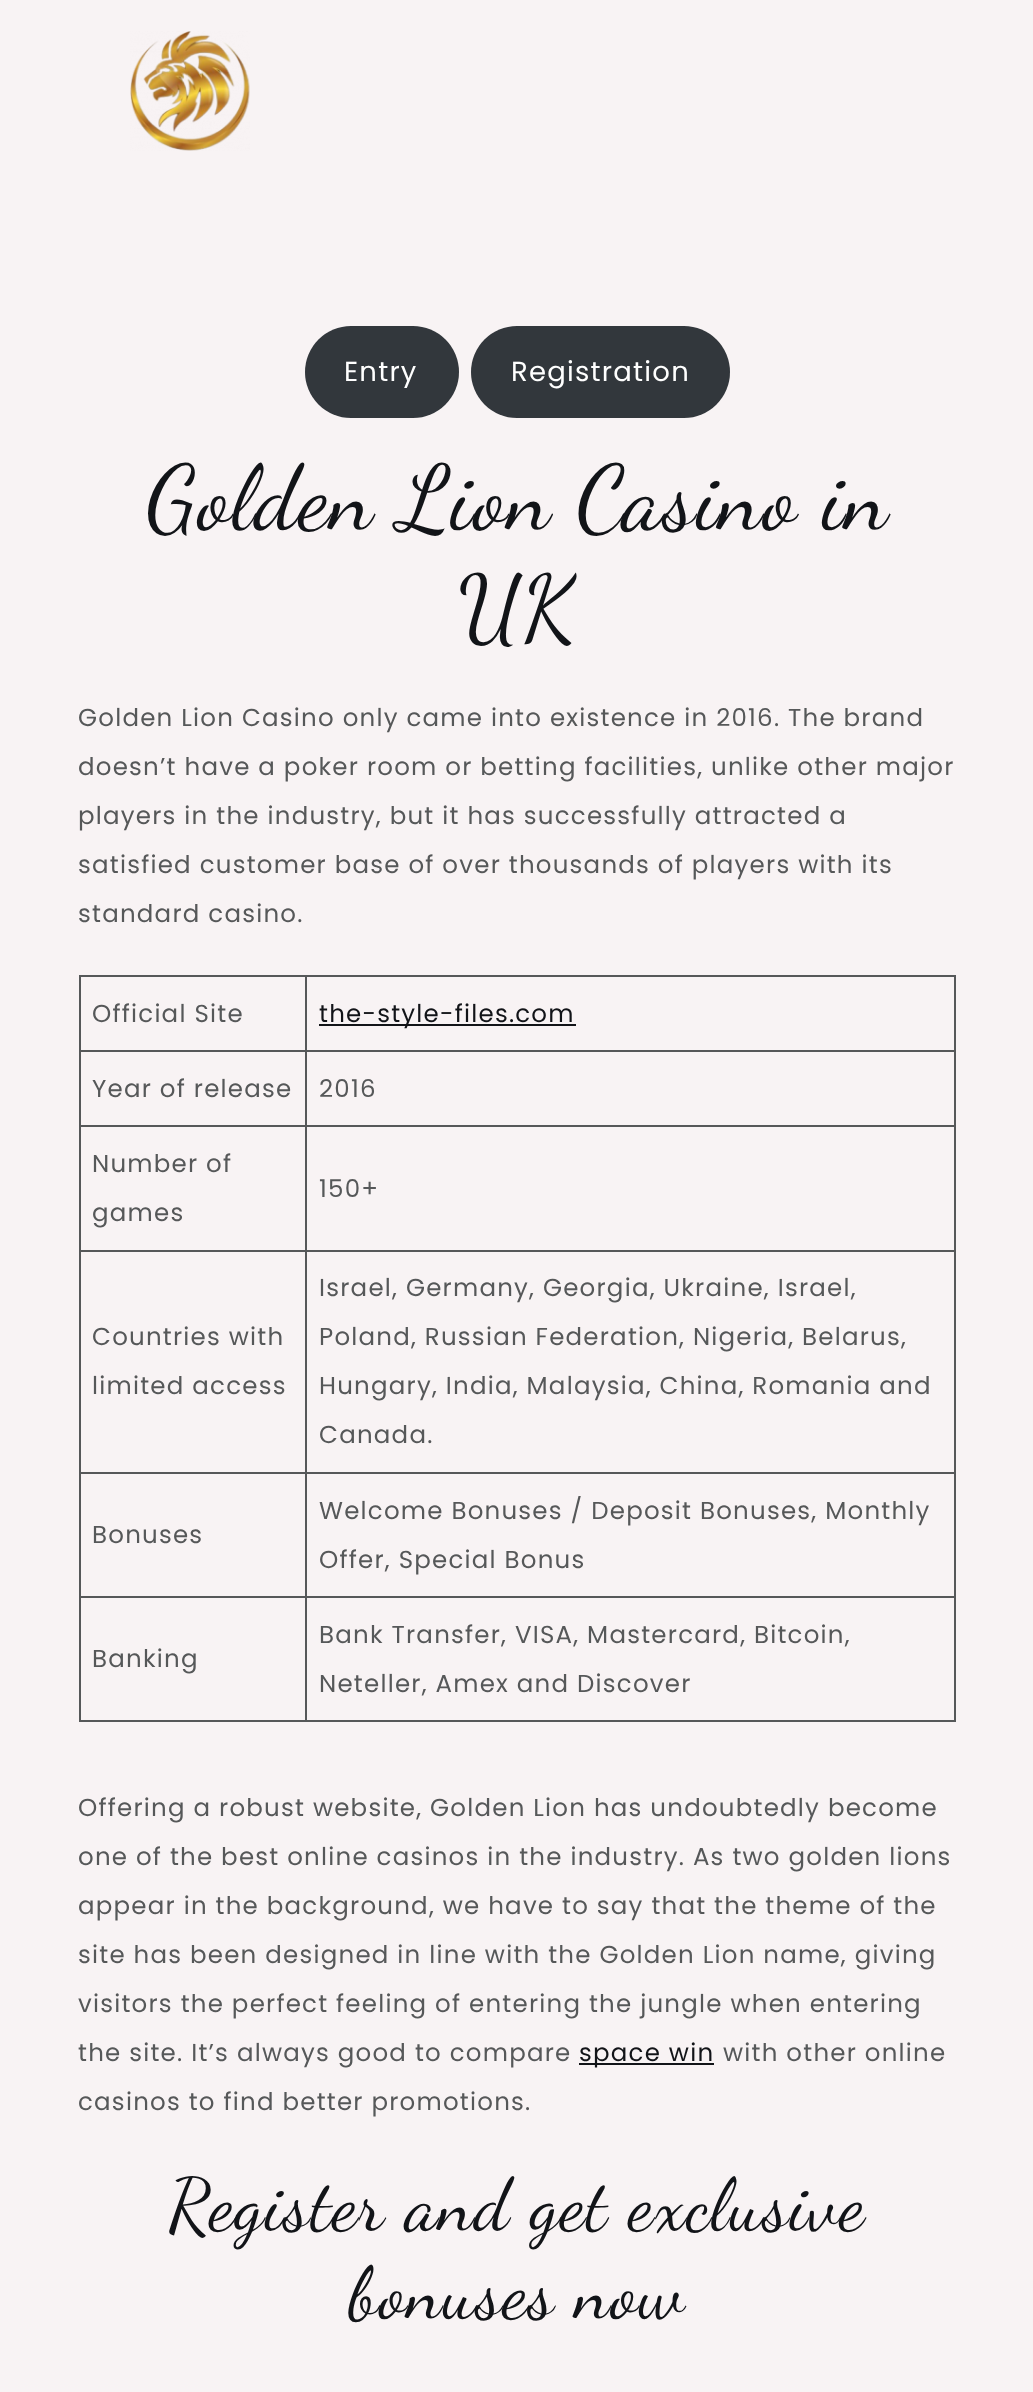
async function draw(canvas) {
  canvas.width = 1033;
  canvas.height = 2392;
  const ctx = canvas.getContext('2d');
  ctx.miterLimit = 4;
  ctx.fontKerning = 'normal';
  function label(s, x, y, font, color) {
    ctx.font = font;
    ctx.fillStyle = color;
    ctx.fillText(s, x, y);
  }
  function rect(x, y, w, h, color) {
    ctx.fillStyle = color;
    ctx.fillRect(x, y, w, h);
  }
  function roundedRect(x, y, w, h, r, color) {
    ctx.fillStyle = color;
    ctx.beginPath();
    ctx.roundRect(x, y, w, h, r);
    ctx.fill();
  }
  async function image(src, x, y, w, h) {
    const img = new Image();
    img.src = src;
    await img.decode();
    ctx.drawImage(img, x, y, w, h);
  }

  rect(0, 0, 1033, 2392, '#f8f3f4');
  await image('assets/img1.png', 130, 31, 120, 120);
  roundedRect(305, 326, 154, 92, 46, '#32373c');
  ctx.letterSpacing = '1.22px';
  label('Entry', 344, 381, '27.5px Poppins', '#fff');
  roundedRect(471, 326, 259, 92, 46, '#32373c');
  label('Registration', 511, 381, '27.5px Poppins', '#fff');
  label('Golden Lion Casino in', 146, 528, '91px Dancing Script', '#121418');
  label('UK', 458, 638, '91px Dancing Script', '#121418');
  label('Golden Lion Casino only came into existence in 2016. The brand', 78, 726, '24.5px Poppins', '#565859');
  label('doesn’t have a poker room or betting facilities, unlike other major', 78, 775, '24.5px Poppins', '#565859');
  label('players in the industry, but it has successfully attracted a', 78, 824, '24.5px Poppins', '#565859');
  label('satisfied customer base of over thousands of players with its', 78, 873, '24.5px Poppins', '#565859');
  label('standard casino.', 78, 922, '24.5px Poppins', '#565859');
  rect(305, 975, 651, 2, '#565859');
  rect(305, 1050, 651, 2, '#565859');
  rect(305, 1125, 651, 2, '#565859');
  rect(305, 1250, 651, 2, '#565859');
  rect(305, 1472, 651, 2, '#565859');
  rect(305, 1596, 651, 2, '#565859');
  rect(954, 1596, 2, 126, '#565859');
  rect(305, 1720, 651, 2, '#565859');
  rect(305, 1596, 2, 126, '#565859');
  rect(79, 1596, 227, 2, '#565859');
  rect(305, 1472, 2, 126, '#565859');
  rect(79, 1472, 227, 2, '#565859');
  rect(305, 1250, 2, 224, '#565859');
  rect(79, 1250, 227, 2, '#565859');
  rect(305, 1125, 2, 126, '#565859');
  rect(79, 1125, 227, 2, '#565859');
  rect(305, 1050, 2, 77, '#565859');
  rect(79, 1050, 227, 2, '#565859');
  rect(305, 975, 2, 77, '#565859');
  rect(79, 975, 227, 2, '#565859');
  rect(79, 1720, 227, 2, '#565859');
  rect(79, 1596, 2, 126, '#565859');
  rect(79, 1472, 2, 126, '#565859');
  rect(79, 1250, 2, 224, '#565859');
  rect(79, 1125, 2, 126, '#565859');
  rect(79, 1050, 2, 77, '#565859');
  rect(79, 975, 2, 77, '#565859');
  label('Official Site', 92, 1022, '24.5px Poppins', '#565859');
  rect(954, 1472, 2, 126, '#565859');
  rect(954, 1250, 2, 224, '#565859');
  rect(954, 1125, 2, 126, '#565859');
  rect(954, 1050, 2, 77, '#565859');
  rect(954, 975, 2, 77, '#565859');
  rect(319, 1024, 257, 2, '#121418');
  label('the-style-files.com', 319, 1022, '24.5px Poppins', '#121418');
  label('Year of release', 92, 1097, '24.5px Poppins', '#565859');
  label('2016', 319, 1097, '24.5px Poppins', '#565859');
  label('Number of', 92, 1172, '24.5px Poppins', '#565859');
  label('games', 92, 1221, '24.5px Poppins', '#565859');
  label('150+', 319, 1197, '24.5px Poppins', '#565859');
  label('Countries with', 92, 1345, '24.5px Poppins', '#565859');
  label('limited access', 92, 1394, '24.5px Poppins', '#565859');
  label('Israel, Germany, Georgia, Ukraine, Israel,', 319, 1296, '24.5px Poppins', '#565859');
  label('Poland, Russian Federation, Nigeria, Belarus,', 319, 1345, '24.5px Poppins', '#565859');
  label('Hungary, India, Malaysia, China, Romania and', 319, 1394, '24.5px Poppins', '#565859');
  label('Canada.', 319, 1443, '24.5px Poppins', '#565859');
  label('Bonuses', 92, 1543, '24.5px Poppins', '#565859');
  label('Welcome Bonuses / Deposit Bonuses, Monthly', 319, 1519, '24.5px Poppins', '#565859');
  label('Offer, Special Bonus', 319, 1568, '24.5px Poppins', '#565859');
  label('Banking', 92, 1667, '24.5px Poppins', '#565859');
  label('Bank Transfer, VISA, Mastercard, Bitcoin,', 319, 1643, '24.5px Poppins', '#565859');
  label('Neteller, Amex and Discover', 319, 1692, '24.5px Poppins', '#565859');
  label('Offering a robust website, Golden Lion has undoubtedly become', 78, 1816, '24.5px Poppins', '#565859');
  label('one of the best online casinos in the industry. As two golden lions', 78, 1865, '24.5px Poppins', '#565859');
  label('appear in the background, we have to say that the theme of the', 78, 1914, '24.5px Poppins', '#565859');
  label('site has been designed in line with the Golden Lion name, giving', 78, 1963, '24.5px Poppins', '#565859');
  label('visitors the perfect feeling of entering the jungle when entering', 78, 2012, '24.5px Poppins', '#565859');
  label('the site. It’s always good to compare', 78, 2061, '24.5px Poppins', '#565859');
  rect(579, 2063, 135, 2, '#121418');
  label('space win', 579, 2061, '24.5px Poppins', '#121418');
  label('with other online', 723, 2061, '24.5px Poppins', '#565859');
  label('casinos to find better promotions.', 78, 2110, '24.5px Poppins', '#565859');
  label('Register and get exclusive', 168, 2229, '73.5px Dancing Script', '#121418');
  label('bonuses now', 349, 2317, '73.5px Dancing Script', '#121418');
}

draw(document.querySelector('canvas'));
